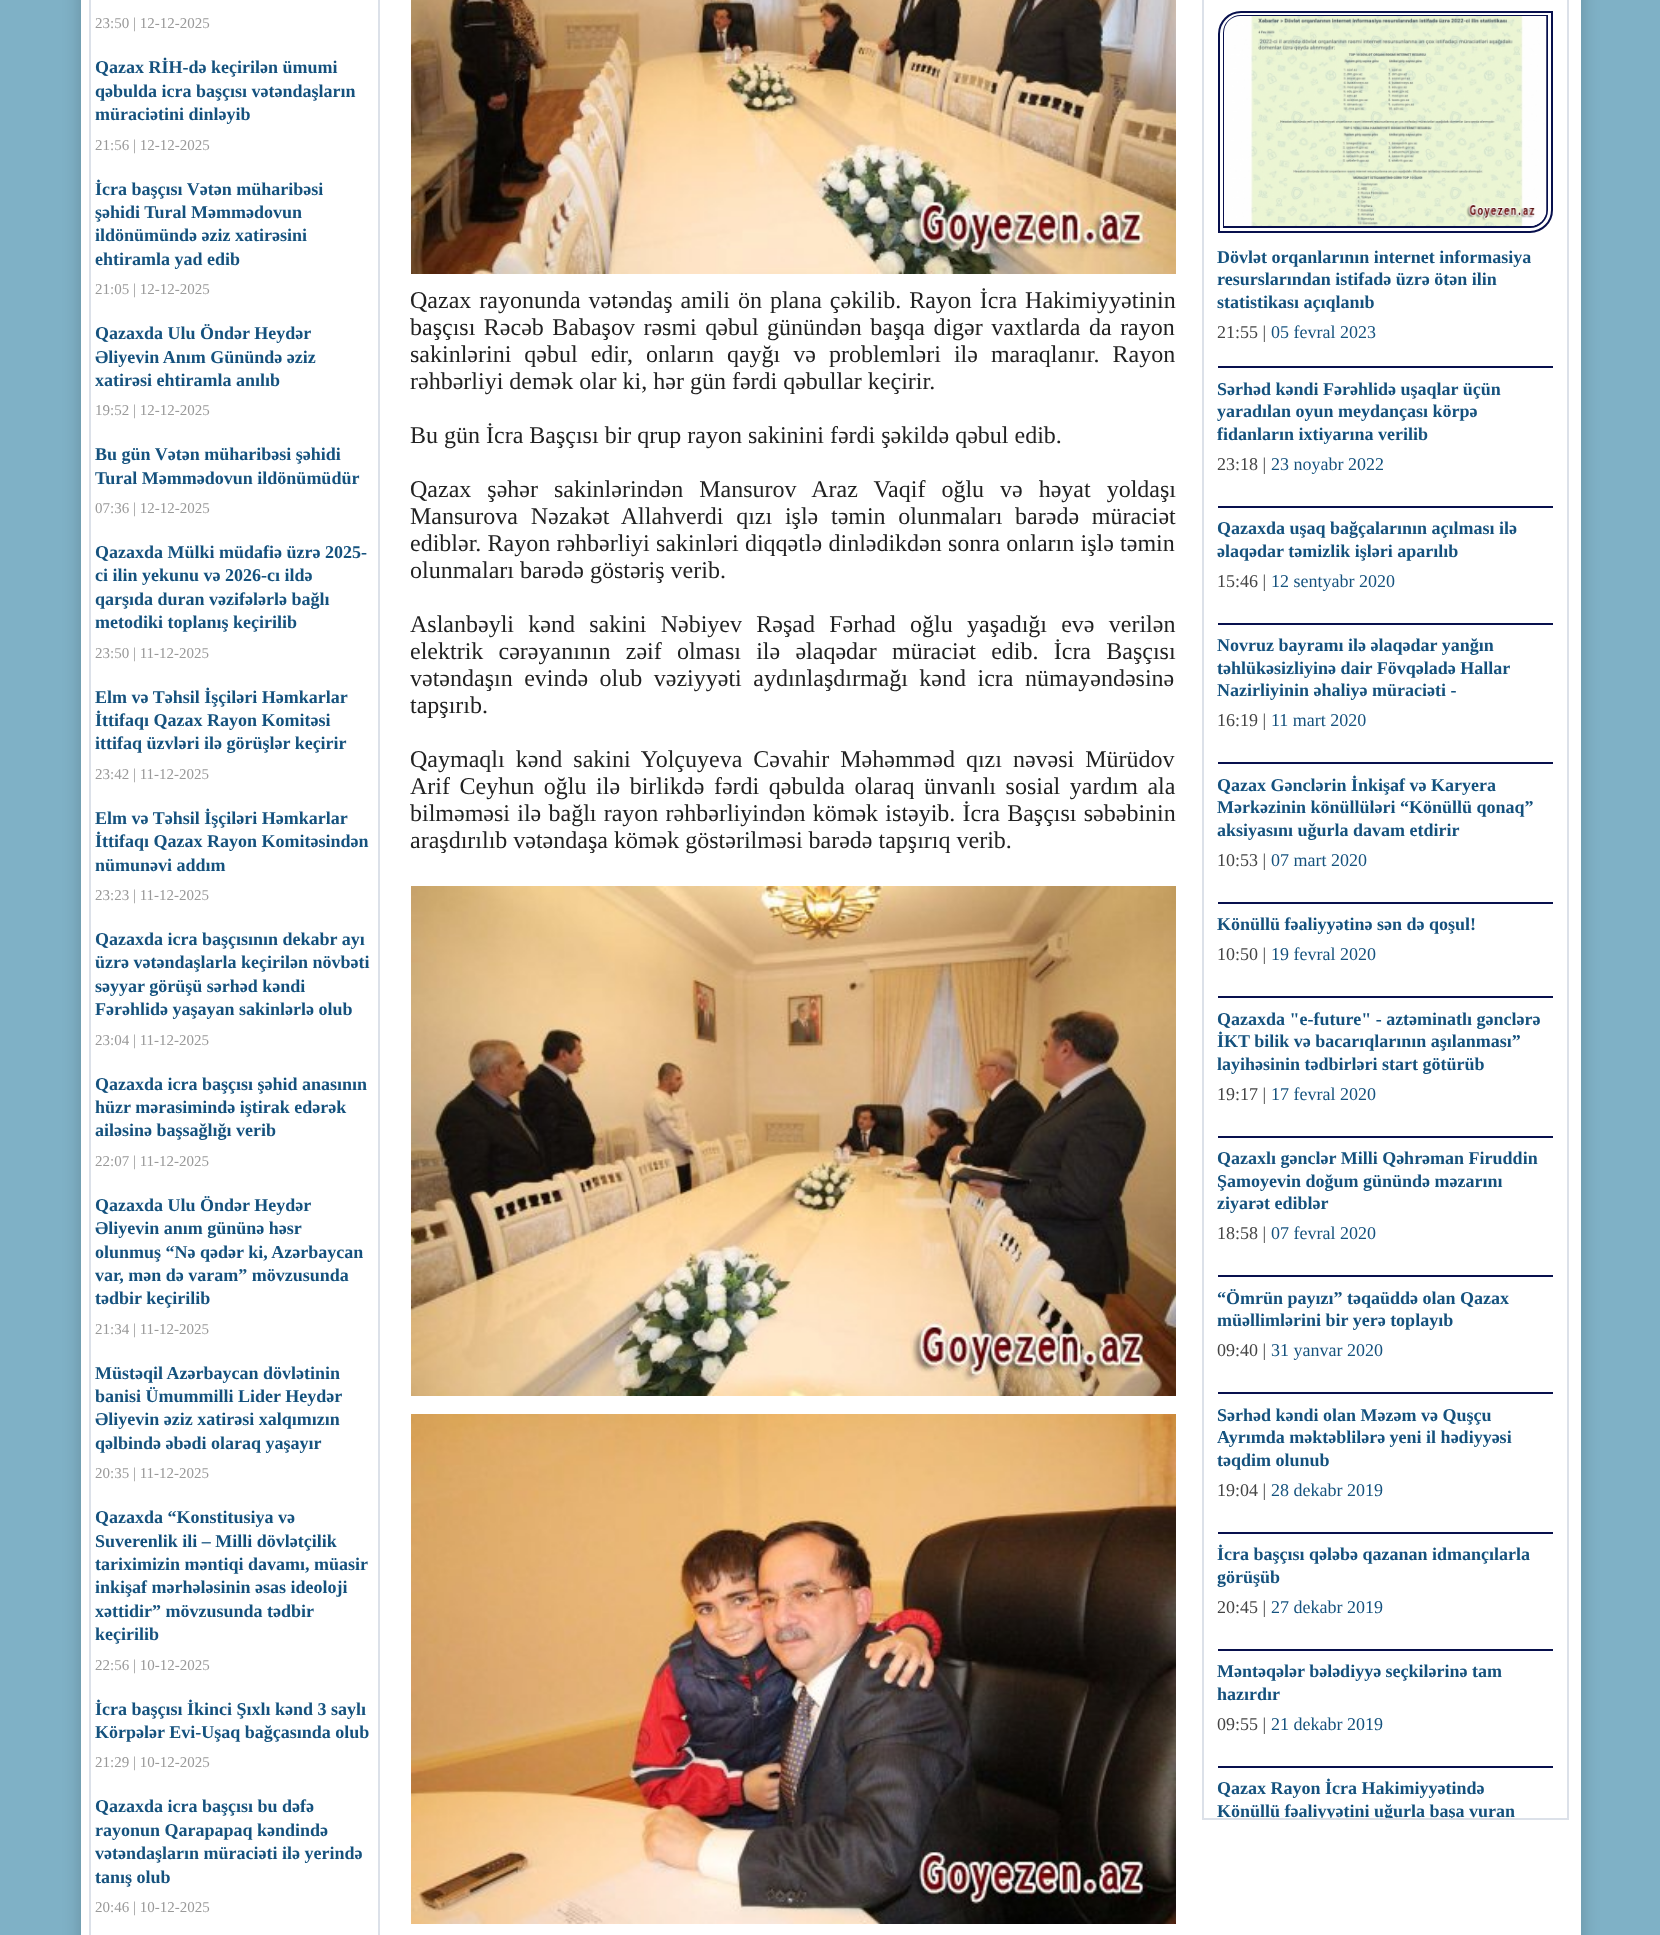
async function draw(canvas) {
  canvas.width = 1660;
  canvas.height = 1935;
  const ctx = canvas.getContext('2d');
  ctx.miterLimit = 4;
  ctx.fontKerning = 'normal';
  function label(s, x, y, font, color) {
    ctx.font = font;
    ctx.fillStyle = color;
    ctx.fillText(s, x, y);
  }
  function rect(x, y, w, h, color) {
    ctx.fillStyle = color;
    ctx.fillRect(x, y, w, h);
  }
  async function image(src, x, y, w, h) {
    const img = new Image();
    img.src = src;
    await img.decode();
    ctx.drawImage(img, x, y, w, h);
  }

  rect(0, 0, 1660, 1935, '#7fb1c6');
  ctx.fillStyle = '#00000033';
  ctx.filter = 'blur(9px)';
  ctx.beginPath();
  ctx.roundRect(81, -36, 1500, 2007, 9);
  ctx.fill();
  ctx.filter = 'none';
  rect(81, 0, 1500, 1935, '#fff');
  ctx.strokeStyle = '#dce1e9';
  ctx.lineWidth = 2;
  ctx.strokeRect(90, -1, 289, 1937);
  label('23:50 | 12-12-2025', 95, 28, '15px Liberation Serif', '#999');
  label('Qazax RİH-də keçirilən ümumi', 95, 73, 'bold 18px Liberation Serif', '#15527e');
  label('qəbulda icra başçısı vətəndaşların', 95, 97, 'bold 18px Liberation Serif', '#15527e');
  label('müraciətini dinləyib', 95, 120, 'bold 18px Liberation Serif', '#15527e');
  label('21:56 | 12-12-2025', 95, 150, '15px Liberation Serif', '#999');
  label('İcra başçısı Vətən müharibəsi', 95, 195, 'bold 18px Liberation Serif', '#15527e');
  label('şəhidi Tural Məmmədovun', 95, 218, 'bold 18px Liberation Serif', '#15527e');
  label('ildönümündə əziz xatirəsini', 95, 241, 'bold 18px Liberation Serif', '#15527e');
  label('ehtiramla yad edib', 95, 265, 'bold 18px Liberation Serif', '#15527e');
  label('21:05 | 12-12-2025', 95, 294, '15px Liberation Serif', '#999');
  label('Qazaxda Ulu Öndər Heydər', 95, 339, 'bold 18px Liberation Serif', '#15527e');
  label('Əliyevin Anım Günündə əziz', 95, 363, 'bold 18px Liberation Serif', '#15527e');
  label('xatirəsi ehtiramla anılıb', 95, 386, 'bold 18px Liberation Serif', '#15527e');
  label('19:52 | 12-12-2025', 95, 415, '15px Liberation Serif', '#999');
  label('Bu gün Vətən müharibəsi şəhidi', 95, 460, 'bold 18px Liberation Serif', '#15527e');
  label('Tural Məmmədovun ildönümüdür', 95, 484, 'bold 18px Liberation Serif', '#15527e');
  label('07:36 | 12-12-2025', 95, 513, '15px Liberation Serif', '#999');
  label('Qazaxda Mülki müdafiə üzrə 2025-', 95, 558, 'bold 18px Liberation Serif', '#15527e');
  label('ci ilin yekunu və 2026-cı ildə', 95, 581, 'bold 18px Liberation Serif', '#15527e');
  label('qarşıda duran vəzifələrlə bağlı', 95, 605, 'bold 18px Liberation Serif', '#15527e');
  label('metodiki toplanış keçirilib', 95, 628, 'bold 18px Liberation Serif', '#15527e');
  label('23:50 | 11-12-2025', 95, 658, '15px Liberation Serif', '#999');
  label('Elm və Təhsil İşçiləri Həmkarlar', 95, 703, 'bold 18px Liberation Serif', '#15527e');
  label('İttifaqı Qazax Rayon Komitəsi', 95, 726, 'bold 18px Liberation Serif', '#15527e');
  label('ittifaq üzvləri ilə görüşlər keçirir', 95, 749, 'bold 18px Liberation Serif', '#15527e');
  label('23:42 | 11-12-2025', 95, 779, '15px Liberation Serif', '#999');
  label('Elm və Təhsil İşçiləri Həmkarlar', 95, 824, 'bold 18px Liberation Serif', '#15527e');
  label('İttifaqı Qazax Rayon Komitəsindən', 95, 847, 'bold 18px Liberation Serif', '#15527e');
  label('nümunəvi addım', 95, 871, 'bold 18px Liberation Serif', '#15527e');
  label('23:23 | 11-12-2025', 95, 900, '15px Liberation Serif', '#999');
  label('Qazaxda icra başçısının dekabr ayı', 95, 945, 'bold 18px Liberation Serif', '#15527e');
  label('üzrə vətəndaşlarla keçirilən növbəti', 95, 968, 'bold 18px Liberation Serif', '#15527e');
  label('səyyar görüşü sərhəd kəndi', 95, 992, 'bold 18px Liberation Serif', '#15527e');
  label('Fərəhlidə yaşayan sakinlərlə olub', 95, 1015, 'bold 18px Liberation Serif', '#15527e');
  label('23:04 | 11-12-2025', 95, 1045, '15px Liberation Serif', '#999');
  label('Qazaxda icra başçısı şəhid anasının', 95, 1090, 'bold 18px Liberation Serif', '#15527e');
  label('hüzr mərasimində iştirak edərək', 95, 1113, 'bold 18px Liberation Serif', '#15527e');
  label('ailəsinə başsağlığı verib', 95, 1136, 'bold 18px Liberation Serif', '#15527e');
  label('22:07 | 11-12-2025', 95, 1166, '15px Liberation Serif', '#999');
  label('Qazaxda Ulu Öndər Heydər', 95, 1211, 'bold 18px Liberation Serif', '#15527e');
  label('Əliyevin anım gününə həsr', 95, 1234, 'bold 18px Liberation Serif', '#15527e');
  label('olunmuş “Nə qədər ki, Azərbaycan', 95, 1258, 'bold 18px Liberation Serif', '#15527e');
  label('var, mən də varam” mövzusunda', 95, 1281, 'bold 18px Liberation Serif', '#15527e');
  label('tədbir keçirilib', 95, 1304, 'bold 18px Liberation Serif', '#15527e');
  label('21:34 | 11-12-2025', 95, 1334, '15px Liberation Serif', '#999');
  label('Müstəqil Azərbaycan dövlətinin', 95, 1379, 'bold 18px Liberation Serif', '#15527e');
  label('banisi Ümummilli Lider Heydər', 95, 1402, 'bold 18px Liberation Serif', '#15527e');
  label('Əliyevin əziz xatirəsi xalqımızın', 95, 1425, 'bold 18px Liberation Serif', '#15527e');
  label('qəlbində əbədi olaraq yaşayır', 95, 1449, 'bold 18px Liberation Serif', '#15527e');
  label('20:35 | 11-12-2025', 95, 1478, '15px Liberation Serif', '#999');
  label('Qazaxda “Konstitusiya və', 95, 1523, 'bold 18px Liberation Serif', '#15527e');
  label('Suverenlik ili – Milli dövlətçilik', 95, 1547, 'bold 18px Liberation Serif', '#15527e');
  label('tariximizin məntiqi davamı, müasir', 95, 1570, 'bold 18px Liberation Serif', '#15527e');
  label('inkişaf mərhələsinin əsas ideoloji', 95, 1593, 'bold 18px Liberation Serif', '#15527e');
  label('xəttidir” mövzusunda tədbir', 95, 1617, 'bold 18px Liberation Serif', '#15527e');
  label('keçirilib', 95, 1640, 'bold 18px Liberation Serif', '#15527e');
  label('22:56 | 10-12-2025', 95, 1670, '15px Liberation Serif', '#999');
  label('İcra başçısı İkinci Şıxlı kənd 3 saylı', 95, 1715, 'bold 18px Liberation Serif', '#15527e');
  label('Körpələr Evi-Uşaq bağçasında olub', 95, 1738, 'bold 18px Liberation Serif', '#15527e');
  label('21:29 | 10-12-2025', 95, 1767, '15px Liberation Serif', '#999');
  label('Qazaxda icra başçısı bu dəfə', 95, 1812, 'bold 18px Liberation Serif', '#15527e');
  label('rayonun Qarapapaq kəndində', 95, 1836, 'bold 18px Liberation Serif', '#15527e');
  label('vətəndaşların müraciəti ilə yerində', 95, 1859, 'bold 18px Liberation Serif', '#15527e');
  label('tanış olub', 95, 1883, 'bold 18px Liberation Serif', '#15527e');
  label('20:46 | 10-12-2025', 95, 1912, '15px Liberation Serif', '#999');
  await image('assets/img1.png', 411, 0, 765, 274);
  ctx.wordSpacing = '2px';
  label('Qazax rayonunda vətəndaş amili ön plana çəkilib. Rayon İcra Hakimiyyətinin', 410, 308, '24px Liberation Serif', '#222');
  ctx.wordSpacing = '2.5px';
  label('başçısı Rəcəb Babaşov rəsmi qəbul günündən başqa digər vaxtlarda da rayon', 410, 335, '24px Liberation Serif', '#222');
  ctx.wordSpacing = '7px';
  label('sakinlərini qəbul edir, onların qayğı və problemləri ilə maraqlanır. Rayon', 410, 362, '24px Liberation Serif', '#222');
  ctx.wordSpacing = '0px';
  label('rəhbərliyi demək olar ki, hər gün fərdi qəbullar keçirir.', 410, 389, '24px Liberation Serif', '#222');
  label('Bu gün İcra Başçısı bir qrup rayon sakinini fərdi şəkildə qəbul edib.', 410, 443, '24px Liberation Serif', '#222');
  ctx.wordSpacing = '10px';
  label('Qazax şəhər sakinlərindən Mansurov Araz Vaqif oğlu və həyat yoldaşı', 410, 497, '24px Liberation Serif', '#222');
  ctx.wordSpacing = '6.75px';
  label('Mansurova Nəzakət Allahverdi qızı işlə təmin olunmaları barədə müraciət', 410, 524, '24px Liberation Serif', '#222');
  ctx.wordSpacing = '0.25px';
  label('ediblər. Rayon rəhbərliyi sakinləri diqqətlə dinlədikdən sonra onların işlə təmin', 410, 551, '24px Liberation Serif', '#222');
  ctx.wordSpacing = '0px';
  label('olunmaları barədə göstəriş verib.', 410, 578, '24px Liberation Serif', '#222');
  ctx.wordSpacing = '8.25px';
  label('Aslanbəyli kənd sakini Nəbiyev Rəşad Fərhad oğlu yaşadığı evə verilən', 410, 632, '24px Liberation Serif', '#222');
  ctx.wordSpacing = '9.25px';
  label('elektrik cərəyanının zəif olması ilə əlaqədar müraciət edib. İcra Başçısı', 410, 659, '24px Liberation Serif', '#222');
  ctx.wordSpacing = '5.5px';
  label('vətəndaşın evində olub vəziyyəti aydınlaşdırmağı kənd icra nümayəndəsinə', 410, 686, '24px Liberation Serif', '#222');
  ctx.wordSpacing = '0px';
  label('tapşırıb.', 410, 713, '24px Liberation Serif', '#222');
  ctx.wordSpacing = '5px';
  label('Qaymaqlı kənd sakini Yolçuyeva Cəvahir Məhəmməd qızı nəvəsi Mürüdov', 410, 767, '24px Liberation Serif', '#222');
  ctx.wordSpacing = '3.6px';
  label('Arif Ceyhun oğlu ilə birlikdə fərdi qəbulda olaraq ünvanlı sosial yardım ala', 410, 794, '24px Liberation Serif', '#222');
  ctx.wordSpacing = '1.25px';
  label('bilməməsi ilə bağlı rayon rəhbərliyindən kömək istəyib. İcra Başçısı səbəbinin', 410, 821, '24px Liberation Serif', '#222');
  ctx.wordSpacing = '0px';
  label('araşdırılıb vətəndaşa kömək göstərilməsi barədə tapşırıq verib.', 410, 848, '24px Liberation Serif', '#222');
  await image('assets/img2.png', 411, 886, 765, 510);
  await image('assets/img3.png', 411, 1414, 765, 510);
  ctx.strokeRect(1203, -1, 365, 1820);
  ctx.beginPath();
  ctx.roundRect(1219, 12, 333, 220, [22, 0, 22, 0]);
  ctx.strokeStyle = '#08104d';
  ctx.stroke();
  ctx.beginPath();
  ctx.roundRect(1224, 16, 323, 211, [17, 0, 17, 0]);
  ctx.stroke();
  await image('assets/img4.png', 1224, 16, 323, 210);
  label('Dövlət orqanlarının internet informasiya', 1217, 263, 'bold 18px Liberation Serif', '#15527e');
  label('resurslarından istifadə üzrə ötən ilin', 1217, 285, 'bold 18px Liberation Serif', '#15527e');
  label('statistikası açıqlanıb', 1217, 308, 'bold 18px Liberation Serif', '#15527e');
  label('21:55 |', 1217, 338, '18px Liberation Serif', '#444');
  label('05 fevral 2023', 1271, 338, '18px Liberation Serif', '#15527e');
  rect(1218, 366, 335, 2, '#08104d');
  label('Sərhəd kəndi Fərəhlidə uşaqlar üçün', 1217, 395, 'bold 18px Liberation Serif', '#15527e');
  label('yaradılan oyun meydançası körpə', 1217, 417, 'bold 18px Liberation Serif', '#15527e');
  label('fidanların ixtiyarına verilib', 1217, 440, 'bold 18px Liberation Serif', '#15527e');
  label('23:18 |', 1217, 470, '18px Liberation Serif', '#444');
  label('23 noyabr 2022', 1271, 470, '18px Liberation Serif', '#15527e');
  rect(1218, 506, 335, 2, '#08104d');
  label('Qazaxda uşaq bağçalarının açılması ilə', 1217, 534, 'bold 18px Liberation Serif', '#15527e');
  label('əlaqədar təmizlik işləri aparılıb', 1217, 557, 'bold 18px Liberation Serif', '#15527e');
  label('15:46 |', 1217, 587, '18px Liberation Serif', '#444');
  label('12 sentyabr 2020', 1271, 587, '18px Liberation Serif', '#15527e');
  rect(1218, 623, 335, 2, '#08104d');
  label('Novruz bayramı ilə əlaqədar yanğın', 1217, 651, 'bold 18px Liberation Serif', '#15527e');
  label('təhlükəsizliyinə dair Fövqəladə Hallar', 1217, 674, 'bold 18px Liberation Serif', '#15527e');
  label('Nazirliyinin əhaliyə müraciəti -', 1217, 696, 'bold 18px Liberation Serif', '#15527e');
  label('16:19 |', 1217, 726, '18px Liberation Serif', '#444');
  label('11 mart 2020', 1271, 726, '18px Liberation Serif', '#15527e');
  rect(1218, 762, 335, 2, '#08104d');
  label('Qazax Gənclərin İnkişaf və Karyera', 1217, 791, 'bold 18px Liberation Serif', '#15527e');
  label('Mərkəzinin könüllüləri “Könüllü qonaq”', 1217, 813, 'bold 18px Liberation Serif', '#15527e');
  label('aksiyasını uğurla davam etdirir', 1217, 836, 'bold 18px Liberation Serif', '#15527e');
  label('10:53 |', 1217, 866, '18px Liberation Serif', '#444');
  label('07 mart 2020', 1271, 866, '18px Liberation Serif', '#15527e');
  rect(1218, 902, 335, 2, '#08104d');
  label('Könüllü fəaliyyətinə sən də qoşul!', 1217, 930, 'bold 18px Liberation Serif', '#15527e');
  label('10:50 |', 1217, 960, '18px Liberation Serif', '#444');
  label('19 fevral 2020', 1271, 960, '18px Liberation Serif', '#15527e');
  rect(1218, 996, 335, 2, '#08104d');
  label('Qazaxda "e-future" - aztəminatlı gənclərə', 1217, 1025, 'bold 18px Liberation Serif', '#15527e');
  label('İKT bilik və bacarıqlarının aşılanması”', 1217, 1047, 'bold 18px Liberation Serif', '#15527e');
  label('layihəsinin tədbirləri start götürüb', 1217, 1070, 'bold 18px Liberation Serif', '#15527e');
  label('19:17 |', 1217, 1100, '18px Liberation Serif', '#444');
  label('17 fevral 2020', 1271, 1100, '18px Liberation Serif', '#15527e');
  rect(1218, 1136, 335, 2, '#08104d');
  label('Qazaxlı gənclər Milli Qəhrəman Firuddin', 1217, 1164, 'bold 18px Liberation Serif', '#15527e');
  label('Şamoyevin doğum günündə məzarını', 1217, 1187, 'bold 18px Liberation Serif', '#15527e');
  label('ziyarət ediblər', 1217, 1209, 'bold 18px Liberation Serif', '#15527e');
  label('18:58 |', 1217, 1239, '18px Liberation Serif', '#444');
  label('07 fevral 2020', 1271, 1239, '18px Liberation Serif', '#15527e');
  rect(1218, 1275, 335, 2, '#08104d');
  label('“Ömrün payızı” təqaüddə olan Qazax', 1217, 1304, 'bold 18px Liberation Serif', '#15527e');
  label('müəllimlərini bir yerə toplayıb', 1217, 1326, 'bold 18px Liberation Serif', '#15527e');
  label('09:40 |', 1217, 1356, '18px Liberation Serif', '#444');
  label('31 yanvar 2020', 1271, 1356, '18px Liberation Serif', '#15527e');
  rect(1218, 1392, 335, 2, '#08104d');
  label('Sərhəd kəndi olan Məzəm və Quşçu', 1217, 1421, 'bold 18px Liberation Serif', '#15527e');
  label('Ayrımda məktəblilərə yeni il hədiyyəsi', 1217, 1443, 'bold 18px Liberation Serif', '#15527e');
  label('təqdim olunub', 1217, 1466, 'bold 18px Liberation Serif', '#15527e');
  label('19:04 |', 1217, 1496, '18px Liberation Serif', '#444');
  label('28 dekabr 2019', 1271, 1496, '18px Liberation Serif', '#15527e');
  rect(1218, 1532, 335, 2, '#08104d');
  label('İcra başçısı qələbə qazanan idmançılarla', 1217, 1560, 'bold 18px Liberation Serif', '#15527e');
  label('görüşüb', 1217, 1583, 'bold 18px Liberation Serif', '#15527e');
  label('20:45 |', 1217, 1613, '18px Liberation Serif', '#444');
  label('27 dekabr 2019', 1271, 1613, '18px Liberation Serif', '#15527e');
  rect(1218, 1649, 335, 2, '#08104d');
  label('Məntəqələr bələdiyyə seçkilərinə tam', 1217, 1677, 'bold 18px Liberation Serif', '#15527e');
  label('hazırdır', 1217, 1700, 'bold 18px Liberation Serif', '#15527e');
  label('09:55 |', 1217, 1730, '18px Liberation Serif', '#444');
  label('21 dekabr 2019', 1271, 1730, '18px Liberation Serif', '#15527e');
  rect(1218, 1766, 335, 2, '#08104d');
  label('Qazax Rayon İcra Hakimiyyətində', 1217, 1794, 'bold 18px Liberation Serif', '#15527e');
  ctx.save();
  ctx.beginPath();
  ctx.rect(1203, 0, 365, 1818);
  ctx.clip();
  label('Könüllü fəaliyyətini uğurla başa vuran', 1217, 1817, 'bold 18px Liberation Serif', '#15527e');
  ctx.restore();
}

draw(document.querySelector('canvas'));
